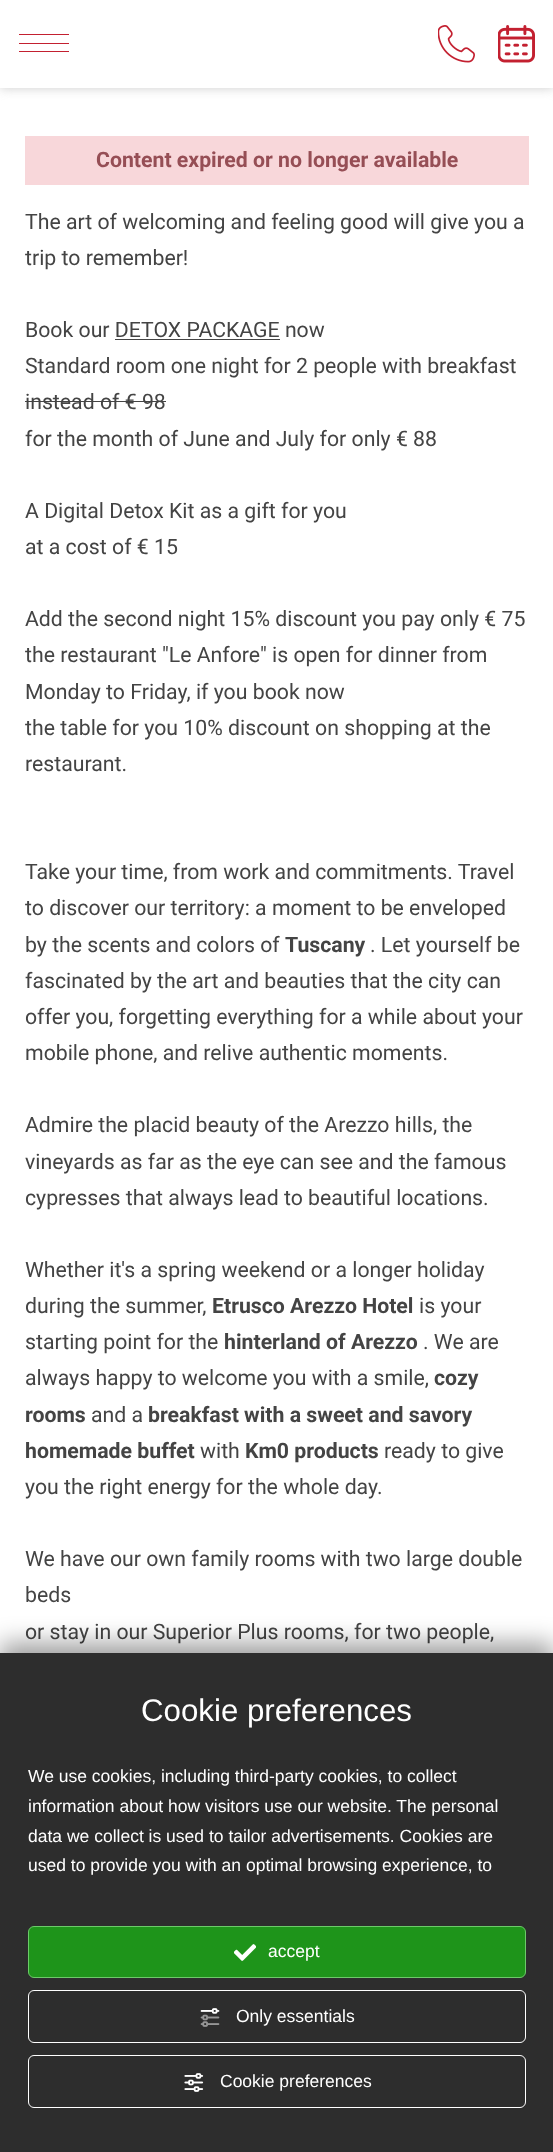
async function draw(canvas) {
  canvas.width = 553;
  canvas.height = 2152;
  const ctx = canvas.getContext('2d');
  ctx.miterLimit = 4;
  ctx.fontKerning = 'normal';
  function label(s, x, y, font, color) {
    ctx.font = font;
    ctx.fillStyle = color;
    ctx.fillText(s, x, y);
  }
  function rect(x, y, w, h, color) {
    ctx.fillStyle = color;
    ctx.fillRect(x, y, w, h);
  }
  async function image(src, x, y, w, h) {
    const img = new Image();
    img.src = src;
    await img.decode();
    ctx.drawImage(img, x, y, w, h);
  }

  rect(0, 0, 553, 2152, '#fff');
  ctx.fillStyle = '#ccc';
  ctx.filter = 'blur(5.5px)';
  ctx.beginPath();
  ctx.rect(0, 0, 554, 88);
  ctx.fill();
  ctx.filter = 'none';
  rect(0, 0, 553, 88, '#fff');
  rect(19, 34, 50, 1, '#c32030');
  rect(19, 43, 50, 1, '#c32030');
  rect(19, 51, 50, 1, '#c32030');
  await image('assets/img1.png', 438, 25, 37, 38);
  await image('assets/img2.png', 498, 25, 37, 38);
  rect(25, 136, 504, 49, '#f8d7da');
  label('Content expired or no longer available', 96, 167, 'bold 21.25px Roboto', '#964e55');
  label('The art of welcoming and feeling good will give you a', 25, 229, '21.25px Roboto', '#444');
  label('trip to remember!', 25, 265, '21.25px Roboto', '#444');
  label('Book our DETOX PACKAGE now', 25, 337, '21.25px Roboto', '#444');
  rect(115, 339, 165, 1, '#444');
  label('Standard room one night for 2 people with breakfast', 25, 373, '21.25px Roboto', '#444');
  label('instead of € 98', 25, 409, '21.25px Roboto', '#444');
  rect(25, 401, 141, 1, '#444');
  label('for the month of June and July for only € 88', 25, 446, '21.25px Roboto', '#444');
  label('A Digital Detox Kit as a gift for you', 25, 518, '21.25px Roboto', '#444');
  label('at a cost of € 15', 25, 554, '21.25px Roboto', '#444');
  label('Add the second night 15% discount you pay only € 75', 25, 626, '21.25px Roboto', '#444');
  label('the restaurant "Le Anfore" is open for dinner from', 25, 662, '21.25px Roboto', '#444');
  label('Monday to Friday, if you book now', 25, 699, '21.25px Roboto', '#444');
  label('the table for you 10% discount on shopping at the', 25, 735, '21.25px Roboto', '#444');
  label('restaurant.', 25, 771, '21.25px Roboto', '#444');
  label('Take your time, from work and commitments. Travel', 25, 879, '21.25px Roboto', '#444');
  label('to discover our territory: a moment to be enveloped', 25, 915, '21.25px Roboto', '#444');
  label('by the scents and colors of', 25, 952, '21.25px Roboto', '#444');
  label('Tuscany', 285, 952, 'bold 21.25px Roboto', '#444');
  label('. Let yourself be', 370, 952, '21.25px Roboto', '#444');
  label('fascinated by the art and beauties that the city can', 25, 988, '21.25px Roboto', '#444');
  label('offer you, forgetting everything for a while about your', 25, 1024, '21.25px Roboto', '#444');
  label('mobile phone, and relive authentic moments.', 25, 1060, '21.25px Roboto', '#444');
  label('Admire the placid beauty of the Arezzo hills, the', 25, 1132, '21.25px Roboto', '#444');
  label('vineyards as far as the eye can see and the famous', 25, 1169, '21.25px Roboto', '#444');
  label('cypresses that always lead to beautiful locations.', 25, 1205, '21.25px Roboto', '#444');
  label('Whether it\'s a spring weekend or a longer holiday', 25, 1277, '21.25px Roboto', '#444');
  label('during the summer,', 25, 1313, '21.25px Roboto', '#444');
  label('Etrusco Arezzo Hotel', 212, 1313, 'bold 21.25px Roboto', '#444');
  label('is your', 419, 1313, '21.25px Roboto', '#444');
  label('starting point for the', 25, 1349, '21.25px Roboto', '#444');
  label('hinterland of Arezzo', 224, 1349, 'bold 21.25px Roboto', '#444');
  label('. We are', 423, 1349, '21.25px Roboto', '#444');
  label('always happy to welcome you with a smile,', 25, 1385, '21.25px Roboto', '#444');
  label('cozy', 434, 1385, 'bold 21.25px Roboto', '#444');
  label('rooms', 25, 1422, 'bold 21.25px Roboto', '#444');
  label('and a', 91, 1422, '21.25px Roboto', '#444');
  label('breakfast with a sweet and savory', 148, 1422, 'bold 21.25px Roboto', '#444');
  label('homemade buffet', 25, 1458, 'bold 21.25px Roboto', '#444');
  label('with', 200, 1458, '21.25px Roboto', '#444');
  label('Km0 products', 245, 1458, 'bold 21.25px Roboto', '#444');
  label('ready to give', 384, 1458, '21.25px Roboto', '#444');
  label('you the right energy for the whole day.', 25, 1494, '21.25px Roboto', '#444');
  label('We have our own family rooms with two large double', 25, 1566, '21.25px Roboto', '#444');
  label('beds', 25, 1602, '21.25px Roboto', '#444');
  label('or stay in our Superior Plus rooms, for two people,', 25, 1639, '21.25px Roboto', '#444');
  ctx.fillStyle = '#00000061';
  ctx.filter = 'blur(12.5px)';
  ctx.beginPath();
  ctx.rect(0, 1643, 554, 500);
  ctx.fill();
  ctx.filter = 'none';
  rect(0, 1653, 553, 499, '#2d2d2d');
  label('Cookie preferences', 141, 1721, '31.25px Liberation Sans', '#fff');
  label('We use cookies, including third-party cookies, to collect', 28, 1782, '17.5px Liberation Sans', '#fff');
  label('information about how visitors use our website. The personal', 28, 1812, '17.5px Liberation Sans', '#fff');
  label('data we collect is used to tailor advertisements. Cookies are', 28, 1842, '17.5px Liberation Sans', '#fff');
  label('used to provide you with an optimal browsing experience, to', 28, 1871, '17.5px Liberation Sans', '#fff');
  ctx.fillStyle = '#1e941a';
  ctx.beginPath();
  ctx.roundRect(28.5, 1926.5, 497, 51, 5.5);
  ctx.fill();
  ctx.strokeStyle = '#6cca69';
  ctx.stroke();
  await image('assets/img3.png', 234, 1944, 22, 17);
  label('accept', 268, 1957, '17.5px Liberation Sans', '#fff');
  ctx.beginPath();
  ctx.roundRect(28.5, 1990.5, 497, 52, 5.5);
  ctx.strokeStyle = '#fff';
  ctx.stroke();
  await image('assets/img4.png', 200, 2008, 20, 19);
  label('Only essentials', 236, 2022, '17.5px Liberation Sans', '#fff');
  ctx.beginPath();
  ctx.roundRect(28.5, 2055.5, 497, 52, 5.5);
  ctx.stroke();
  await image('assets/img5.png', 184, 2073, 20, 19);
  label('Cookie preferences', 220, 2087, '17.5px Liberation Sans', '#fff');
}

draw(document.querySelector('canvas'));
